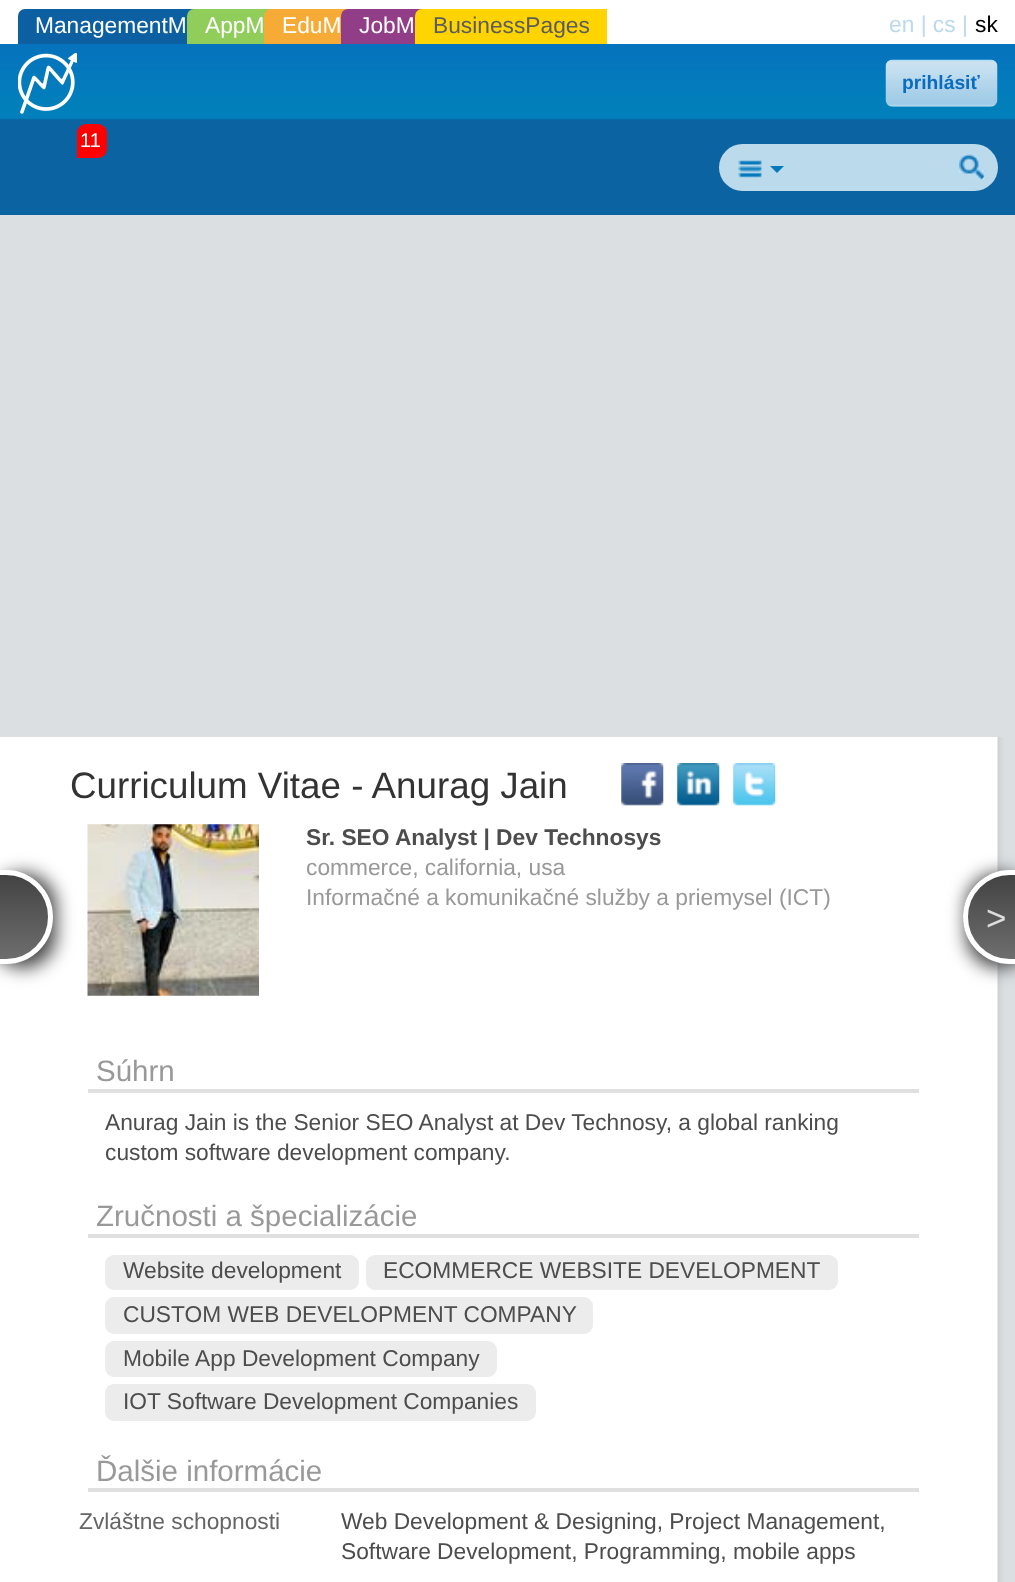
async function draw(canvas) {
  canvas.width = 1015;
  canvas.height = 1582;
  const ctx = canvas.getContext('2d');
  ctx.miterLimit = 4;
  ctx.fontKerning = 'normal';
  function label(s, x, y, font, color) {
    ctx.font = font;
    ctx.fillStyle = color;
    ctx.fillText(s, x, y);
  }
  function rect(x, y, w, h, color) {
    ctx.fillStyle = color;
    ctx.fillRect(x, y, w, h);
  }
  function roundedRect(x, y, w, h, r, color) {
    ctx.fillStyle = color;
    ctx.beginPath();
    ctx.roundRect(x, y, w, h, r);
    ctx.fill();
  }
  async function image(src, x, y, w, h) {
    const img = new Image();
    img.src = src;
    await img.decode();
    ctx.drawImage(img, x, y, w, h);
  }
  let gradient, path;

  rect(0, 0, 1015, 1582, '#0b63a1');
  await image('assets/img1.png', 0, 44, 1015, 76);
  rect(0, 0, 1015, 44, '#fff');
  label('en | cs |', 889, 32, '22.75px Liberation Sans', '#bbdaec');
  label('sk', 975, 32, '22.75px Liberation Sans', '#000');
  await image('assets/img2.png', 18, 53, 59, 61);
  await image('assets/img3.png', 885, 59, 113, 48);
  label('prihlásiť', 902, 89, 'bold 19.25px Liberation Sans', '#096cbf');
  ctx.fillStyle = '#bbdaec';
  ctx.beginPath();
  ctx.roundRect(719, 144, 56, 47, [23.5, 0, 0, 23.5]);
  ctx.fill();
  await image('assets/img4.png', 738, 160, 24, 18);
  rect(775, 144, 167, 47, '#bbdaec');
  ctx.fillStyle = '#0479bc';
  path = new Path2D('M770 166H784L777 173Z');
  ctx.fill(path);
  ctx.fillStyle = '#bbdaec';
  ctx.beginPath();
  ctx.roundRect(942, 144, 56, 47, [0, 23.5, 23.5, 0]);
  ctx.fill();
  await image('assets/img5.png', 959, 154, 26, 26);
  ctx.fillStyle = '#f00';
  ctx.beginPath();
  ctx.roundRect(77, 124, 30, 34, [9, 9, 9, 0]);
  ctx.fill();
  label('11', 80, 147, '20px Liberation Sans', '#fff');
  ctx.fillStyle = '#0c60a2';
  ctx.beginPath();
  ctx.roundRect(18, 9, 229, 35, [7, 0, 0, 0]);
  ctx.fill();
  label('ManagementM', 35, 33, '22.75px Liberation Sans', '#fff');
  ctx.fillStyle = '#90cd5a';
  ctx.beginPath();
  ctx.roundRect(187, 9, 137, 35, [7, 0, 0, 0]);
  ctx.fill();
  label('AppM', 205, 33, '22.75px Liberation Sans', '#fff');
  ctx.fillStyle = '#f5ab35';
  ctx.beginPath();
  ctx.roundRect(264, 9, 139, 35, [7, 0, 0, 0]);
  ctx.fill();
  label('EduM', 282, 33, '22.75px Liberation Sans', '#fff');
  ctx.fillStyle = '#913d88';
  ctx.beginPath();
  ctx.roundRect(341, 9, 135, 35, [7, 0, 0, 0]);
  ctx.fill();
  label('JobM', 359, 33, '22.75px Liberation Sans', '#fff');
  ctx.fillStyle = '#ffd400';
  ctx.beginPath();
  ctx.roundRect(415, 9, 192, 35, [7, 0, 0, 0]);
  ctx.fill();
  label('BusinessPages', 433, 33, '22.75px Liberation Sans', '#5c5c5c');
  rect(0, 215, 1015, 522, '#dcdfe2');
  rect(0, 737, 998, 845, '#fff');
  ctx.fillStyle = '#444';
  ctx.filter = 'blur(9px)';
  ctx.beginPath();
  ctx.roundRect(-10, 873, 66, 95, 47);
  ctx.fill();
  ctx.filter = 'none';
  ctx.save();
  path = new Path2D('M-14 870H6C32 870 53 891 53 917C53 943 32 964 6 964H-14Z');
  ctx.clip(path);
  gradient = ctx.createLinearGradient(19, 875, 19, 959);
  gradient.addColorStop(0, '#434343');
  gradient.addColorStop(1, '#6e6e6e');
  ctx.fillStyle = gradient;
  ctx.fillRect(0, 875, 53, 84);
  ctx.restore();
  path = new Path2D('M-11.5 872.5H6C30.5 872.5 50.5 892.5 50.5 917C50.5 941.5 30.5 961.5 6 961.5H-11.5Z');
  ctx.strokeStyle = '#fff';
  ctx.lineWidth = 5;
  ctx.stroke(path);
  await image('assets/img6.png', 997, 737, 18, 845);
  label('Curriculum Vitae - Anurag Jain', 70, 798, '36.75px Liberation Sans', '#333');
  await image('assets/img7.png', 621, 763, 43, 43);
  await image('assets/img8.png', 677, 763, 43, 43);
  await image('assets/img9.png', 733, 763, 43, 43);
  await image('assets/img10.png', 87, 824, 172, 172);
  label('Sr. SEO Analyst | Dev Technosys', 306, 845, 'bold 22.75px Liberation Sans', '#4d4d4d');
  label('commerce, california, usa', 306, 875, '22.75px Liberation Sans', '#999');
  label('Informačné a komunikačné služby a priemysel (ICT)', 306, 905, '22.75px Liberation Sans', '#999');
  rect(88, 1089, 831, 4, '#e0e0e0');
  label('Súhrn', 96, 1081, '29.5px Liberation Sans', '#999');
  label('Anurag Jain is the Senior SEO Analyst at Dev Technosy, a global ranking', 105, 1130, '22.75px Liberation Sans', '#4d4d4d');
  label('custom software development company.', 105, 1160, '22.75px Liberation Sans', '#4d4d4d');
  rect(88, 1234, 831, 4, '#e0e0e0');
  label('Zručnosti a špecializácie', 96, 1226, '29.5px Liberation Sans', '#999');
  roundedRect(105, 1255, 254, 35, 9, '#ececec');
  label('Website development', 123, 1278, '22.75px Liberation Sans', '#4d4d4d');
  roundedRect(366, 1255, 472, 35, 9, '#ececec');
  label('ECOMMERCE WEBSITE DEVELOPMENT', 383, 1278, '22.75px Liberation Sans', '#4d4d4d');
  roundedRect(105, 1297, 488, 37, 9, '#ececec');
  label('CUSTOM WEB DEVELOPMENT COMPANY', 123, 1322, '22.75px Liberation Sans', '#4d4d4d');
  roundedRect(105, 1341, 392, 36, 9, '#ececec');
  label('Mobile App Development Company', 123, 1366, '22.75px Liberation Sans', '#4d4d4d');
  roundedRect(105, 1384, 431, 37, 9, '#ececec');
  label('IOT Software Development Companies', 123, 1409, '22.75px Liberation Sans', '#4d4d4d');
  rect(88, 1488, 831, 4, '#e0e0e0');
  label('Ďalšie informácie', 96, 1481, '29.5px Liberation Sans', '#999');
  label('Zvláštne schopnosti', 79, 1529, '22.75px Liberation Sans', '#666');
  label('Web Development & Designing, Project Management,', 341, 1529, '22.75px Liberation Sans', '#4d4d4d');
  label('Software Development, Programming, mobile apps', 341, 1559, '22.75px Liberation Sans', '#4d4d4d');
  ctx.fillStyle = '#444';
  ctx.filter = 'blur(9px)';
  ctx.beginPath();
  ctx.roundRect(966, 873, 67, 95, 47);
  ctx.fill();
  ctx.filter = 'none';
  ctx.save();
  path = new Path2D('M1010 870H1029V964H1010C984 964 963 943 963 917C963 891 984 870 1010 870Z');
  ctx.clip(path);
  gradient = ctx.createLinearGradient(996, 875, 996, 959);
  gradient.addColorStop(0, '#434343');
  gradient.addColorStop(1, '#6e6e6e');
  ctx.fillStyle = gradient;
  ctx.fillRect(963, 875, 52, 84);
  ctx.restore();
  path = new Path2D('M1010 872.5H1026.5V961.5H1010C985.5 961.5 965.5 941.5 965.5 917C965.5 892.5 985.5 872.5 1010 872.5Z');
  ctx.stroke(path);
  label('>', 986, 930, '35px Liberation Sans', '#ddd');
}

draw(document.querySelector('canvas'));
